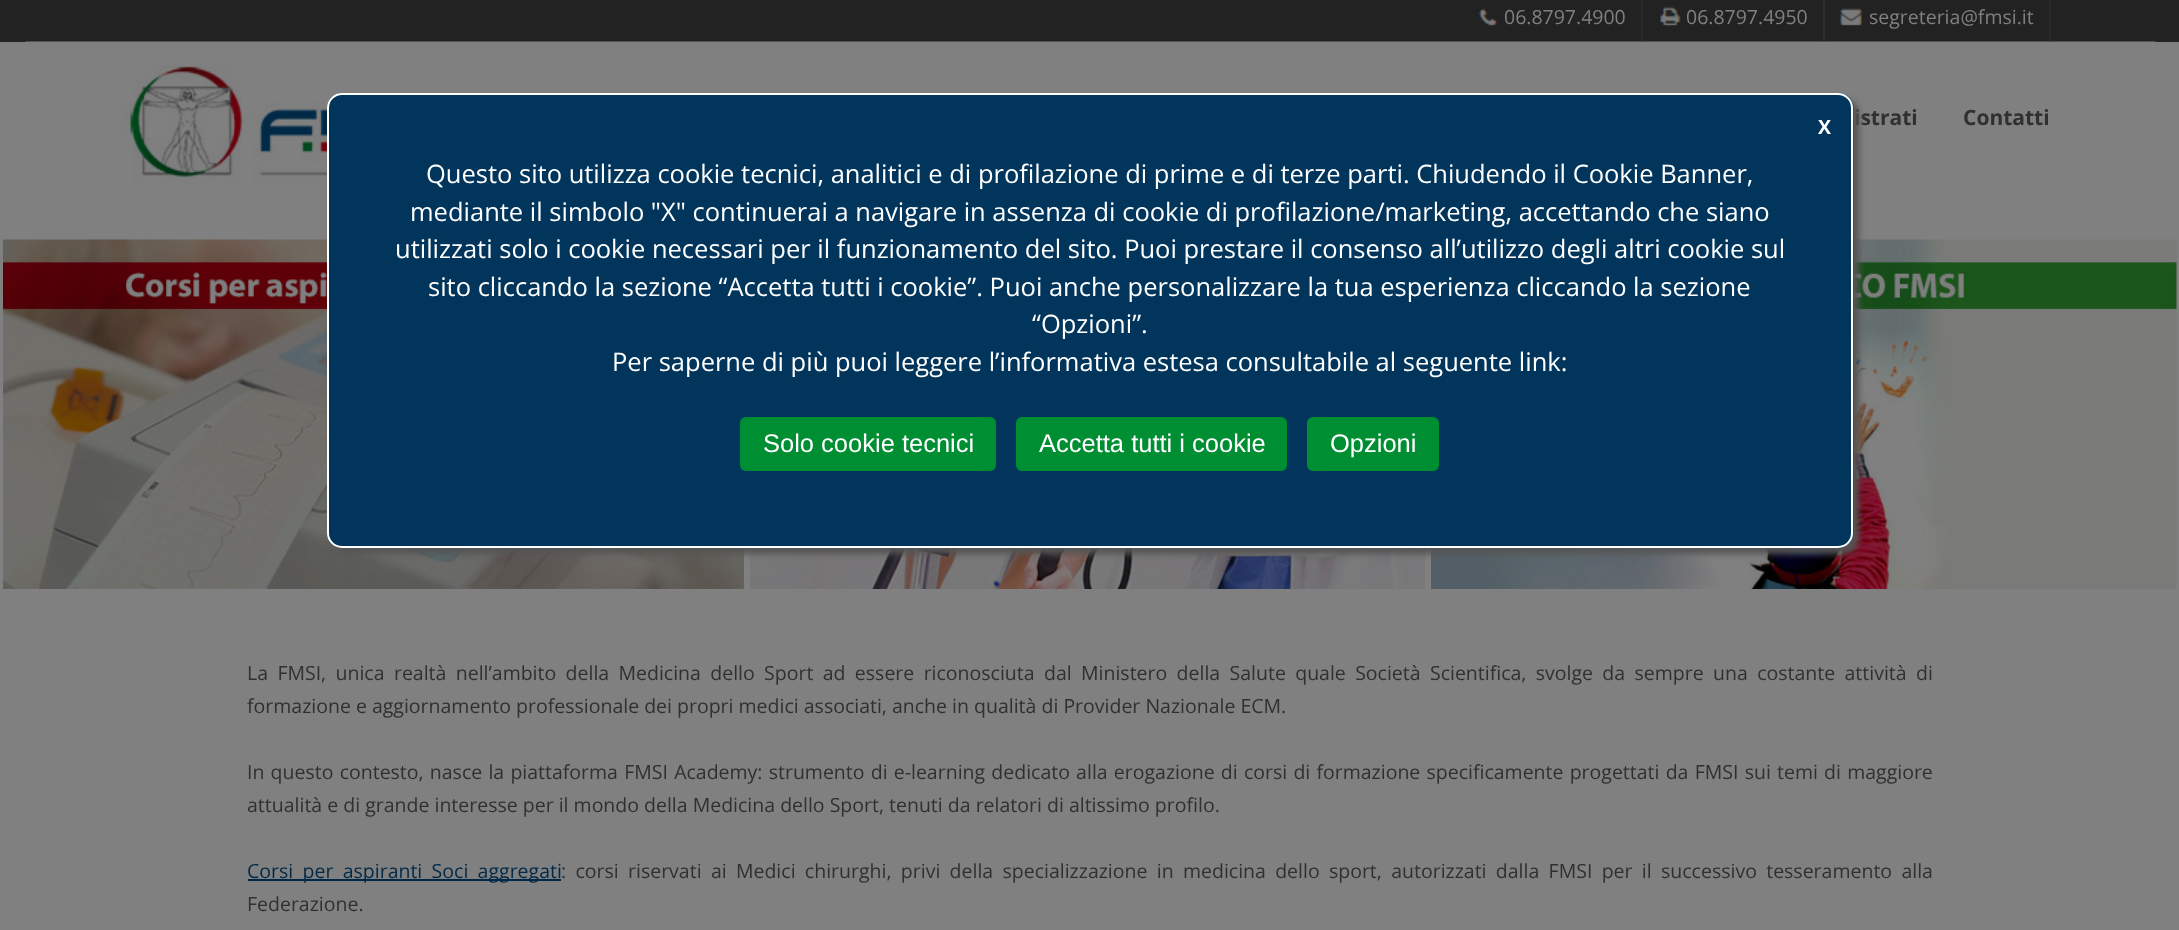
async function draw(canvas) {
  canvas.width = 2179;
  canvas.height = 930;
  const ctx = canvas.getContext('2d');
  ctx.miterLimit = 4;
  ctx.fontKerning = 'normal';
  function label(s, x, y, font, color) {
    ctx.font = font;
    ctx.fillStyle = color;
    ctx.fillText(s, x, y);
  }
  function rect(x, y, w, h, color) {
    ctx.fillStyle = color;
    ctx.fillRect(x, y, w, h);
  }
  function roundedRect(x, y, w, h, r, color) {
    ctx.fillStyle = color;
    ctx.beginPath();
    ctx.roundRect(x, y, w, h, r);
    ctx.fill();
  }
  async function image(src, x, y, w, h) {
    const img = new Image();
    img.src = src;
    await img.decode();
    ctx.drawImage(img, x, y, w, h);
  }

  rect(0, 0, 2179, 930, '#808080');
  rect(0, 0, 2179, 42, '#222');
  rect(1641, 0, 2, 41, '#2b2b2b');
  await image('assets/img1.png', 1474, 4, 25, 24);
  label('06.8797.4900', 1504, 24, '19.5px Open Sans', '#808080');
  rect(1823, 0, 2, 41, '#2b2b2b');
  await image('assets/img2.png', 1657, 4, 25, 24);
  label('06.8797.4950', 1686, 24, '19.5px Open Sans', '#808080');
  rect(2049, 0, 2, 41, '#2b2b2b');
  await image('assets/img3.png', 1839, 4, 24, 24);
  label('segreteria@fmsi.it', 1869, 24, '19.5px Open Sans', '#808080');
  await image('assets/img4.png', 25, 41, 2131, 176);
  label('istrati', 1854, 125, 'bold 21px Open Sans', '#303030');
  label('Contatti', 1963, 125, 'bold 21px Open Sans', '#303030');
  await image('assets/img5.png', 3, 239, 741, 350);
  await image('assets/img6.png', 750, 548, 675, 41);
  await image('assets/img7.png', 1431, 239, 746, 350);
  ctx.wordSpacing = '4.3px';
  label('La FMSI, unica realtà nell’ambito della Medicina dello Sport ad essere riconosciuta dal Ministero della Salute quale Società Scientifica, svolge da sempre una costante attività di', 247, 680, '19.5px Open Sans', '#303030');
  ctx.wordSpacing = '0px';
  label('formazione e aggiornamento professionale dei propri medici associati, anche in qualità di Provider Nazionale ECM.', 247, 713, '19.5px Open Sans', '#303030');
  ctx.wordSpacing = '1.15px';
  label('In questo contesto, nasce la piattaforma FMSI Academy: strumento di e-learning dedicato alla erogazione di corsi di formazione specificamente progettati da FMSI sui temi di maggiore', 247, 779, '19.5px Open Sans', '#303030');
  ctx.wordSpacing = '0px';
  label('attualità e di grande interesse per il mondo della Medicina dello Sport, tenuti da relatori di altissimo profilo.', 247, 812, '19.5px Open Sans', '#303030');
  rect(248, 879, 313, 2, '#012947');
  ctx.wordSpacing = '4.25px';
  label('Corsi per aspiranti Soci aggregati', 247, 878, '19.5px Open Sans', '#012947');
  label(': corsi riservati ai Medici chirurghi, privi della specializzazione in medicina dello sport, autorizzati dalla FMSI per il successivo tesseramento alla', 561, 878, '19.5px Open Sans', '#303030');
  ctx.wordSpacing = '0px';
  label('Federazione.', 247, 911, '19.5px Open Sans', '#303030');
  ctx.fillStyle = '#555';
  ctx.filter = 'blur(3px)';
  ctx.beginPath();
  ctx.roundRect(333, 99, 1526, 455, 15);
  ctx.fill();
  ctx.filter = 'none';
  await image('assets/img8.png', 327, 93, 1527, 455);
  ctx.beginPath();
  ctx.roundRect(328, 94, 1524, 453, 14);
  ctx.strokeStyle = '#fff';
  ctx.lineWidth = 2;
  ctx.stroke();
  label('X', 1818, 134, 'bold 19.5px Open Sans', '#fff');
  label('Questo sito utilizza cookie tecnici, analitici e di profilazione di prime e di terze parti. Chiudendo il Cookie Banner,', 426, 183, '25.5px Open Sans', '#fff');
  label('mediante il simbolo "X" continuerai a navigare in assenza di cookie di profilazione/marketing, accettando che siano', 410, 221, '25.5px Open Sans', '#fff');
  label('utilizzati solo i cookie necessari per il funzionamento del sito. Puoi prestare il consenso all’utilizzo degli altri cookie sul', 395, 258, '25.5px Open Sans', '#fff');
  label('sito cliccando la sezione “Accetta tutti i cookie”. Puoi anche personalizzare la tua esperienza cliccando la sezione', 428, 296, '25.5px Open Sans', '#fff');
  label('“Opzioni”.', 1032, 333, '25.5px Open Sans', '#fff');
  label('Per saperne di più puoi leggere l’informativa estesa consultabile al seguente link:', 612, 371, '25.5px Open Sans', '#fff');
  roundedRect(740, 417, 256, 54, 6, '#008e33');
  label('Solo cookie tecnici', 763, 452, '25.5px Liberation Sans', '#fff');
  roundedRect(1016, 417, 271, 54, 6, '#008e33');
  label('Accetta tutti i cookie', 1039, 452, '25.5px Liberation Sans', '#fff');
  roundedRect(1307, 417, 132, 54, 6, '#008e33');
  label('Opzioni', 1330, 452, '25.5px Liberation Sans', '#fff');
}

draw(document.querySelector('canvas'));
